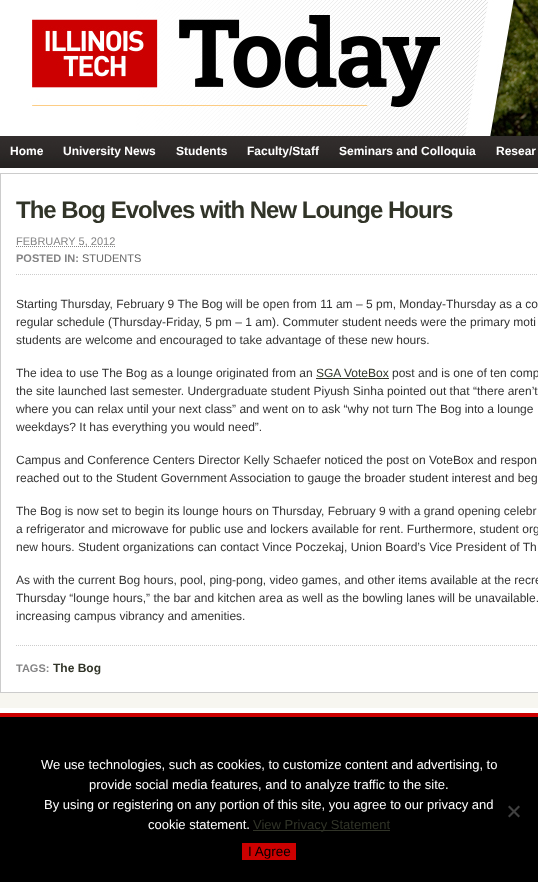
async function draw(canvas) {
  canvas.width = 538;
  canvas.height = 882;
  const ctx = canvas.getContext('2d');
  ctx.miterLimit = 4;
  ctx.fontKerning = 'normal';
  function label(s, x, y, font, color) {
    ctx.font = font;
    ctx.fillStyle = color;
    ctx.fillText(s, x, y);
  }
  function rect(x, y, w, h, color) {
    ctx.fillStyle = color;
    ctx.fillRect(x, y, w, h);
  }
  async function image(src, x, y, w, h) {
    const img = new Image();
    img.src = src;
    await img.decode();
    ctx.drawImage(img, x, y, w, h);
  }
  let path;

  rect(0, 0, 538, 882, '#fff');
  await image('assets/img1.png', 32, 0, 506, 136);
  await image('assets/img2.png', 0, 136, 538, 32);
  label('Home', 10, 155, 'bold 12px Liberation Sans', '#fff');
  label('University News', 63, 155, 'bold 12px Liberation Sans', '#fff');
  label('Students', 176, 155, 'bold 12px Liberation Sans', '#fff');
  label('Faculty/Staff', 247, 155, 'bold 12px Liberation Sans', '#fff');
  label('Seminars and Colloquia', 339, 155, 'bold 12px Liberation Sans', '#fff');
  label('Resear', 496, 155, 'bold 12px Liberation Sans', '#fff');
  rect(0, 693, 538, 15, '#f7f6f0');
  ctx.strokeStyle = '#ccc';
  ctx.strokeRect(0.5, 173.5, 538, 519);
  ctx.letterSpacing = '-1px';
  label('The Bog Evolves with New Lounge Hours', 16, 218, 'bold 24px Liberation Sans', '#313428');
  path = new Path2D('M16 274.5H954');
  ctx.setLineDash([1, 1]);
  ctx.stroke(path);
  path = new Path2D('M16 246.5H115.5');
  ctx.strokeStyle = '#848485';
  ctx.stroke(path);
  ctx.letterSpacing = '0px';
  label('FEBRUARY 5, 2012', 16, 245, '11px Liberation Sans', '#848485');
  label('POSTED IN:', 16, 262, 'bold 11px Liberation Sans', '#848485');
  label('STUDENTS', 82, 262, '11px Liberation Sans', '#666');
  label('Starting Thursday, February 9 The Bog will be open from 11 am – 5 pm, Monday-Thursday as a co', 16, 308, '12px Liberation Sans', '#333');
  label('regular schedule (Thursday-Friday, 5 pm – 1 am). Commuter student needs were the primary moti', 16, 326, '12px Liberation Sans', '#333');
  label('students are welcome and encouraged to take advantage of these new hours.', 16, 344, '12px Liberation Sans', '#333');
  label('The idea to use The Bog as a lounge originated from an', 16, 377, '12px Liberation Sans', '#333');
  label('SGA VoteBox', 316, 377, '12px Liberation Sans', '#313428');
  rect(316, 378, 73, 1, '#313428');
  label('post and is one of ten comp', 392, 377, '12px Liberation Sans', '#333');
  label('the site launched last semester. Undergraduate student Piyush Sinha pointed out that “there aren’t', 16, 395, '12px Liberation Sans', '#333');
  label('where you can relax until your next class” and went on to ask “why not turn The Bog into a lounge', 16, 413, '12px Liberation Sans', '#333');
  label('weekdays? It has everything you would need”.', 16, 431, '12px Liberation Sans', '#333');
  label('Campus and Conference Centers Director Kelly Schaefer noticed the post on VoteBox and respon', 16, 464, '12px Liberation Sans', '#333');
  label('reached out to the Student Government Association to gauge the broader student interest and beg', 16, 482, '12px Liberation Sans', '#333');
  label('The Bog is now set to begin its lounge hours on Thursday, February 9 with a grand opening celebr', 16, 515, '12px Liberation Sans', '#333');
  label('a refrigerator and microwave for public use and lockers available for rent. Furthermore, student org', 16, 533, '12px Liberation Sans', '#333');
  label('new hours. Student organizations can contact Vince Poczekaj, Union Board’s Vice President of Th', 16, 551, '12px Liberation Sans', '#333');
  label('As with the current Bog hours, pool, ping-pong, video games, and other items available at the recre', 16, 584, '12px Liberation Sans', '#333');
  label('Thursday “lounge hours,” the bar and kitchen area as well as the bowling lanes will be unavailable.', 16, 602, '12px Liberation Sans', '#333');
  label('increasing campus vibrancy and amenities.', 16, 620, '12px Liberation Sans', '#333');
  path = new Path2D('M16 645.5H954');
  ctx.strokeStyle = '#ccc';
  ctx.stroke(path);
  label('TAGS:', 16, 672, 'bold 11px Liberation Sans', '#848485');
  label('The Bog', 53, 672, 'bold 12px Liberation Sans', '#313428');
  rect(0, 717, 538, 165, '#000');
  rect(0, 713, 538, 4, '#c00');
  label('We use technologies, such as cookies, to customize content and advertising, to', 41, 769, '13px Liberation Sans', '#fff');
  label('provide social media features, and to analyze traffic to the site.', 89, 789, '13px Liberation Sans', '#fff');
  label('By using or registering on any portion of this site, you agree to our privacy and', 44, 809, '13px Liberation Sans', '#fff');
  label('cookie statement.', 148, 829, '13px Liberation Sans', '#fff');
  rect(253, 830, 137, 1, '#313428');
  label('View Privacy Statement', 253, 829, '13px Liberation Sans', '#313428');
  ctx.fillStyle = '#404040';
  path = new Path2D('M518.5 805.5L520 807L509.5 817.5L508 816Z');
  ctx.fill(path);
  path = new Path2D('M508 807L509.5 805.5L520 816L518.5 817.5Z');
  ctx.fill(path);
  rect(242, 843, 54, 17, '#c00');
  label('I Agree', 248, 856, '13.5px Liberation Sans', '#000');
}

draw(document.querySelector('canvas'));
